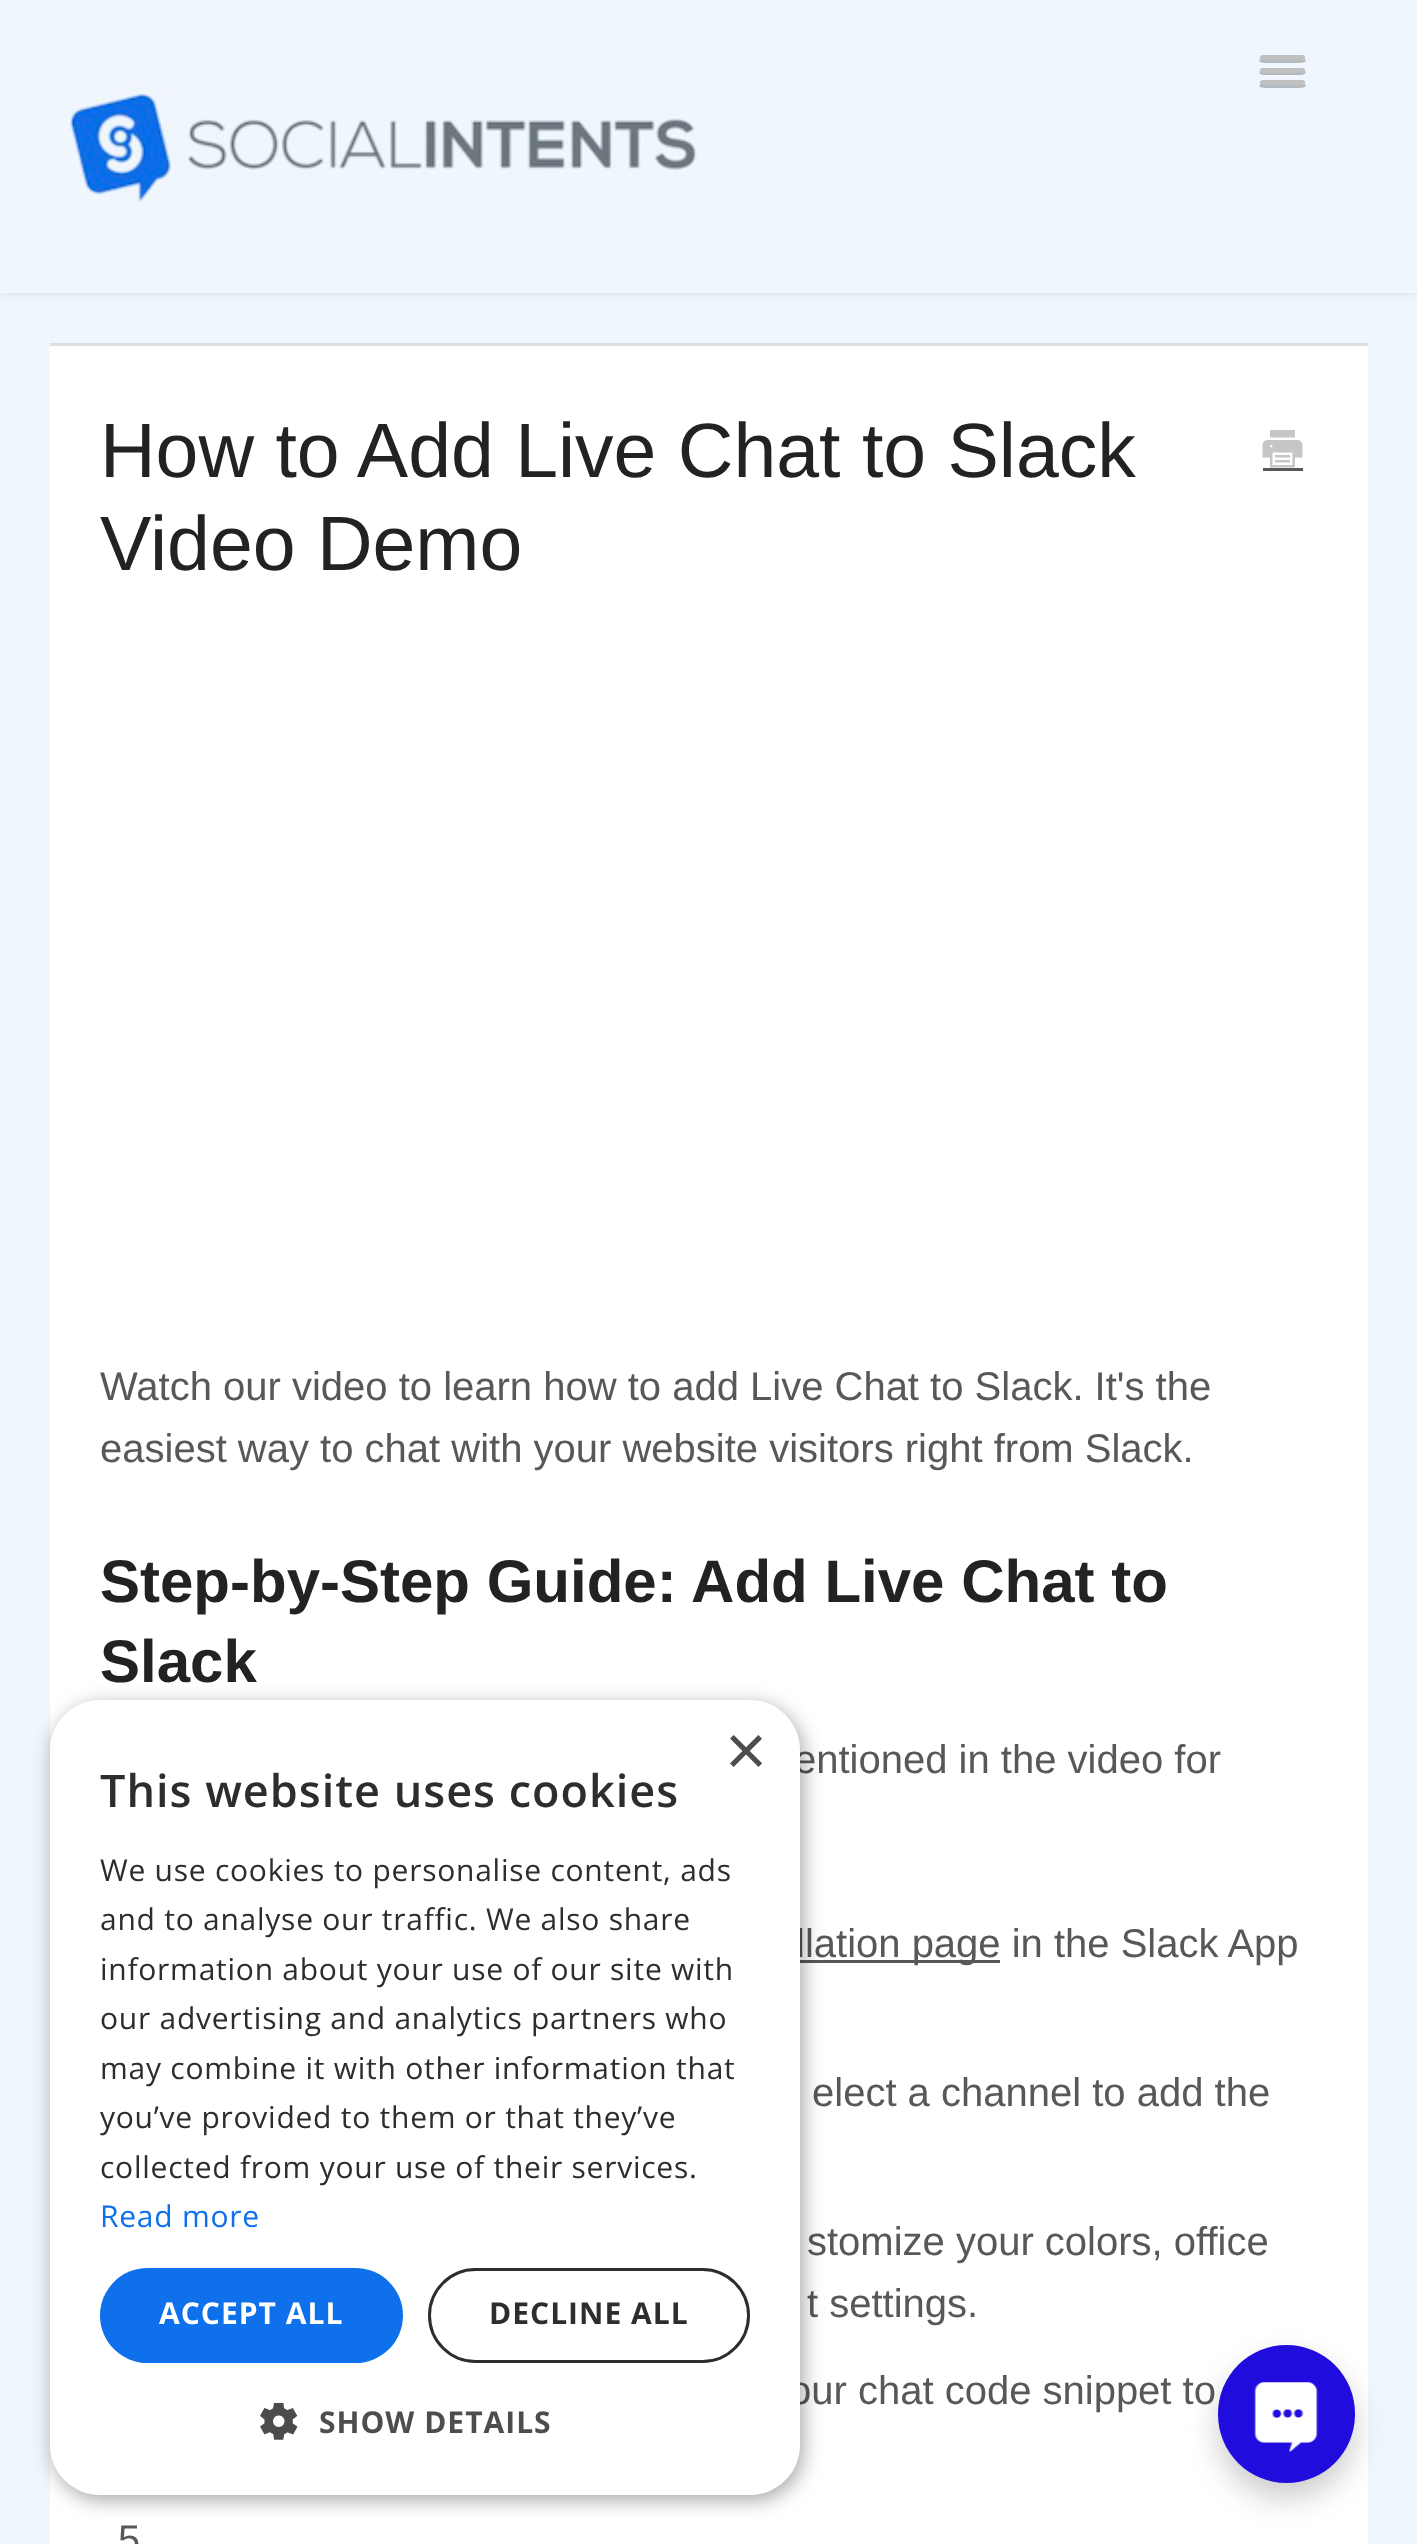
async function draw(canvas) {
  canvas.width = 1417;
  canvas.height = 2544;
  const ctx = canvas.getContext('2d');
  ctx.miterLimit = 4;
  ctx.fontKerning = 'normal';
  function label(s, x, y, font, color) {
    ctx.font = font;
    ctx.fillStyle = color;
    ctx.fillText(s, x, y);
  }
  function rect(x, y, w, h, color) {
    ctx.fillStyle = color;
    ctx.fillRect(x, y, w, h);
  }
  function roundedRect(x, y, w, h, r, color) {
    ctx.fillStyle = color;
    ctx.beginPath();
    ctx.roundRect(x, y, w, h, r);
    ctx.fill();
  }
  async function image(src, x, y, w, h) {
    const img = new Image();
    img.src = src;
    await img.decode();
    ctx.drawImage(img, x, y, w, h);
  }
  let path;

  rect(0, 0, 1417, 2544, '#f0f6fd');
  ctx.fillStyle = '#00000012';
  ctx.filter = 'blur(5px)';
  ctx.beginPath();
  ctx.rect(0, 3, 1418, 292);
  ctx.fill();
  ctx.filter = 'none';
  rect(0, 0, 1417, 293, '#f0f6fd');
  ctx.fillStyle = '#b4b9be';
  path = new Path2D('M1260 59C1257 63 1265 63 1269 63H1296C1300 63 1308 63 1305 59L1303 60H1262Z');
  ctx.fill(path);
  roundedRect(1260, 55, 45, 5, 2.5, '#c0c0c0');
  ctx.fillStyle = '#b4b9be';
  path = new Path2D('M1260 71C1257 76 1269 75 1269 75H1296C1296 75 1308 76 1305 71C1304 72 1303 72 1302 72H1262C1262 72 1261 72 1260 71Z');
  ctx.fill(path);
  roundedRect(1260, 68, 45, 5, 2.5, '#c0c0c0');
  ctx.fillStyle = '#b4b9be';
  path = new Path2D('M1260 84C1257 88 1265 88 1269 88H1296C1300 88 1308 88 1305 84L1303 85H1262Z');
  ctx.fill(path);
  roundedRect(1260, 80, 45, 5, 2.5, '#c0c0c0');
  await image('assets/img1.png', 50, 81, 647, 121);
  rect(50, 346, 1318, 2198, '#fff');
  rect(50, 343, 1318, 3, '#dedede');
  label('How to Add Live Chat to Slack', 100, 477, '77px Liberation Sans', '#222');
  label('Video Demo', 100, 570, '77px Liberation Sans', '#222');
  await image('assets/img2.png', 1262, 430, 41, 38);
  rect(1263, 468, 40, 3, '#585858');
  label('Watch our video to learn how to add Live Chat to Slack. It\'s the', 100, 1400, '40px Liberation Sans', '#585858');
  label('easiest way to chat with your website visitors right from Slack.', 100, 1462, '40px Liberation Sans', '#585858');
  label('Step-by-Step Guide: Add Live Chat to', 100, 1602, 'bold 60px Liberation Sans', '#222');
  label('Slack', 100, 1682, 'bold 60px Liberation Sans', '#222');
  label('entioned in the video for', 794, 1773, '40px Liberation Sans', '#585858');
  rect(800, 1960, 200, 3, '#585858');
  label('llation page in the Slack App', 796, 1957, '40px Liberation Sans', '#585858');
  label('elect a channel to add the', 812, 2106, '40px Liberation Sans', '#585858');
  label('stomize your colors, office', 807, 2255, '40px Liberation Sans', '#585858');
  label('t settings.', 807, 2317, '40px Liberation Sans', '#585858');
  label('our chat code snippet to', 789, 2404, '40px Liberation Sans', '#585858');
  label('5', 118, 2553, '40px Liberation Sans', '#585858');
  ctx.fillStyle = '#00000059';
  ctx.filter = 'blur(10px)';
  ctx.beginPath();
  ctx.roundRect(53, 1705, 750, 795, 50);
  ctx.fill();
  ctx.filter = 'none';
  roundedRect(50, 1700, 750, 795, 50, '#fff');
  label('×', 725, 1775, '72px Liberation Sans', '#4d4d4d');
  ctx.letterSpacing = '1px';
  label('This website uses cookies', 100, 1807, '600 45px Open Sans', '#2d2d2d');
  ctx.letterSpacing = '0.75px';
  label('We use cookies to personalise content, ads', 100, 1881, '30px Open Sans', '#2d2d2d');
  label('and to analyse our traffic. We also share', 100, 1930, '30px Open Sans', '#2d2d2d');
  label('information about your use of our site with', 100, 1980, '30px Open Sans', '#2d2d2d');
  label('our advertising and analytics partners who', 100, 2029, '30px Open Sans', '#2d2d2d');
  label('may combine it with other information that', 100, 2079, '30px Open Sans', '#2d2d2d');
  label('you’ve provided to them or that they’ve', 100, 2128, '30px Open Sans', '#2d2d2d');
  label('collected from your use of their services.', 100, 2178, '30px Open Sans', '#2d2d2d');
  label('Read more', 100, 2227, '30px Open Sans', '#0e71eb');
  roundedRect(100, 2268, 303, 95, 47.5, '#0e71eb');
  ctx.letterSpacing = '1px';
  label('ACCEPT ALL', 159, 2324, 'bold 30px Open Sans', '#fff');
  ctx.beginPath();
  ctx.roundRect(429.5, 2269.5, 319, 92, 46);
  ctx.strokeStyle = '#2d2d2d';
  ctx.lineWidth = 3;
  ctx.stroke();
  label('DECLINE ALL', 489, 2324, 'bold 30px Open Sans', '#2d2d2d');
  await image('assets/img3.png', 260, 2403, 38, 37);
  label('SHOW DETAILS', 319, 2433, 'bold 30px Open Sans', '#4d4d4d');
  ctx.fillStyle = '#00000033';
  ctx.filter = 'blur(15px)';
  ctx.beginPath();
  ctx.roundRect(1218, 2360, 137, 138, 68.5);
  ctx.fill();
  ctx.filter = 'none';
  roundedRect(1218, 2345, 137, 138, 68.5, '#210cde');
  await image('assets/img4.png', 1254, 2382, 64, 70);
}

draw(document.querySelector('canvas'));
